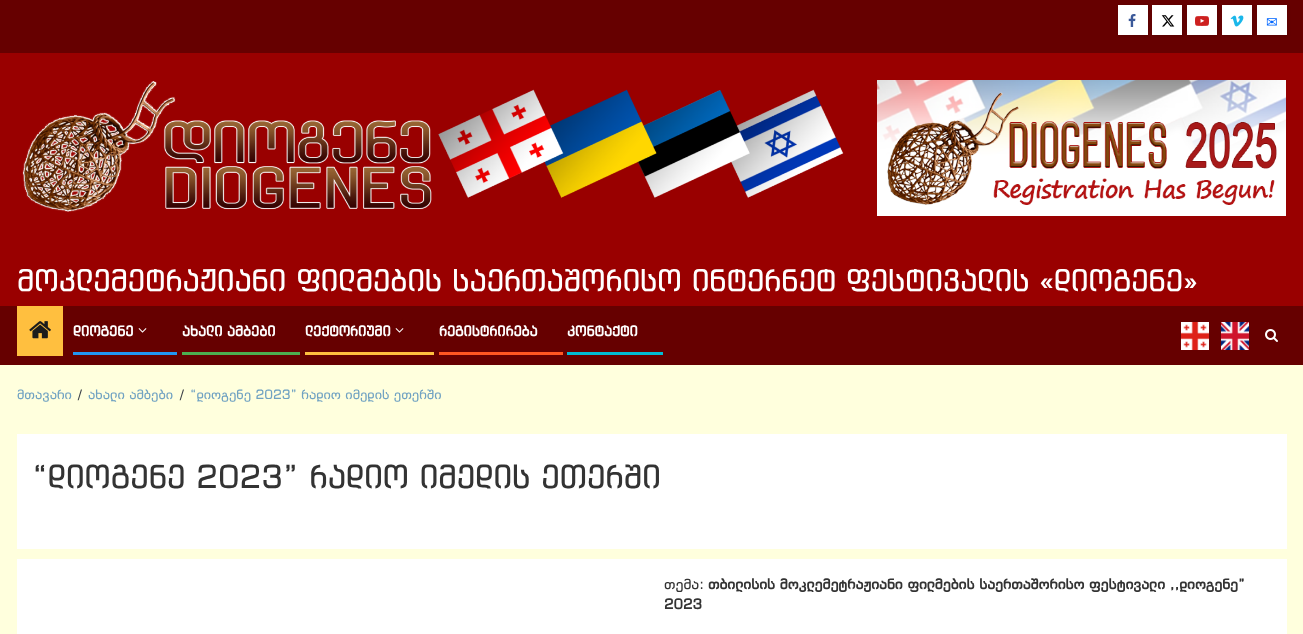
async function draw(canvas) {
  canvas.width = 1303;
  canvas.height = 634;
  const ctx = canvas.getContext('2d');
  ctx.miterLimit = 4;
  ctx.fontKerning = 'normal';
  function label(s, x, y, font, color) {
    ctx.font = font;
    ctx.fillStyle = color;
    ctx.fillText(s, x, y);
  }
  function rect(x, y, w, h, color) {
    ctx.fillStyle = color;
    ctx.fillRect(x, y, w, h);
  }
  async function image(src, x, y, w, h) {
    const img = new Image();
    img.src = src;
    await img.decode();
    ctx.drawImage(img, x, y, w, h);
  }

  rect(0, 0, 1303, 634, '#ffd');
  rect(0, 0, 1303, 53, '#600');
  ctx.fillStyle = '#00000026';
  ctx.filter = 'blur(1.5px)';
  ctx.beginPath();
  ctx.rect(1119, 6, 30, 30);
  ctx.fill();
  ctx.filter = 'none';
  rect(1118, 5, 30, 30, '#fff');
  await image('assets/img1.png', 1128, 14, 8, 13);
  ctx.fillStyle = '#00000026';
  ctx.filter = 'blur(1.5px)';
  ctx.beginPath();
  ctx.rect(1153, 6, 30, 30);
  ctx.fill();
  ctx.filter = 'none';
  rect(1152, 5, 30, 30, '#fff');
  await image('assets/img2.png', 1161, 15, 14, 12);
  ctx.fillStyle = '#00000026';
  ctx.filter = 'blur(1.5px)';
  ctx.beginPath();
  ctx.rect(1188, 6, 30, 30);
  ctx.fill();
  ctx.filter = 'none';
  rect(1187, 5, 30, 30, '#fff');
  await image('assets/img3.png', 1195, 16, 14, 10);
  ctx.fillStyle = '#00000026';
  ctx.filter = 'blur(1.5px)';
  ctx.beginPath();
  ctx.rect(1223, 6, 30, 30);
  ctx.fill();
  ctx.filter = 'none';
  rect(1222, 5, 30, 30, '#fff');
  await image('assets/img4.png', 1230, 15, 14, 12);
  ctx.fillStyle = '#00000026';
  ctx.filter = 'blur(1.5px)';
  ctx.beginPath();
  ctx.rect(1258, 6, 30, 30);
  ctx.fill();
  ctx.filter = 'none';
  rect(1257, 5, 30, 30, '#fff');
  label('✉', 1266, 27, '14px DejaVu Sans', '#06f');
  rect(0, 53, 1303, 253, '#900');
  await image('assets/img5.png', 22, 81, 822, 131);
  await image('assets/img6.png', 877, 80, 409, 136);
  label('მოკლემეტრაჟიანი ფილმების საერთაშორისო ინტერნეტ ფესტივალის «დიოგენე»', 17, 291, '30px "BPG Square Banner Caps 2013"', '#fff');
  rect(0, 306, 1303, 59, '#600');
  rect(17, 306, 46, 50, '#ffbf3f');
  await image('assets/img7.png', 29, 321, 22, 18);
  label('დიოგენე', 73, 336, 'bold 14px "BPG Square Banner Caps 2013"', '#fff');
  await image('assets/img8.png', 138, 328, 9, 5);
  rect(73, 352, 104, 3, '#2196f3');
  label('ახალი ამბები', 182, 336, 'bold 14px "BPG Square Banner Caps 2013"', '#fff');
  rect(182, 352, 118, 3, '#4caf50');
  label('ლექტორიუმი', 305, 336, 'bold 14px "BPG Square Banner Caps 2013"', '#fff');
  await image('assets/img8.png', 395, 328, 9, 5);
  rect(305, 352, 129, 3, '#ffbf3f');
  label('რეგისტრირება', 439, 336, 'bold 14px "BPG Square Banner Caps 2013"', '#fff');
  rect(439, 352, 124, 3, '#ff5722');
  label('კონტაქტი', 567, 336, 'bold 14px "BPG Square Banner Caps 2013"', '#fff');
  rect(567, 352, 96, 3, '#00bcd4');
  await image('assets/img9.png', 1181, 322, 28, 28);
  await image('assets/img10.png', 1221, 322, 28, 28);
  await image('assets/img11.png', 1265, 329, 13, 13);
  label('მთავარი', 17, 399, '13px "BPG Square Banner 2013"', '#70a2c2');
  label('/', 78, 399, '13px "BPG Square Banner 2013"', '#393e46');
  label('ახალი ამბები', 88, 399, '13px "BPG Square Banner 2013"', '#70a2c2');
  label('/', 180, 399, '13px "BPG Square Banner 2013"', '#393e46');
  label('“დიოგენე 2023” რადიო იმედის ეთერში', 190, 399, '13px "BPG Square Banner 2013"', '#70a2c2');
  rect(17, 434, 1270, 115, '#fff');
  label('“დიოგენე 2023” რადიო იმედის ეთერში', 32, 488, '32px "BPG Square Banner Caps 2013"', '#333');
  rect(17, 559, 1270, 75, '#fff');
  label('თემა:', 664, 589, '14px "BPG Square Banner 2013"', '#333');
  label('თბილისის მოკლემეტრაჟიანი ფილმების საერთაშორისო ფესტივალი ,,დიოგენე”', 708, 589, 'bold 14px "BPG Square Banner 2013"', '#333');
  label('2023', 664, 609, 'bold 14px "BPG Square Banner 2013"', '#333');
}

draw(document.querySelector('canvas'));
